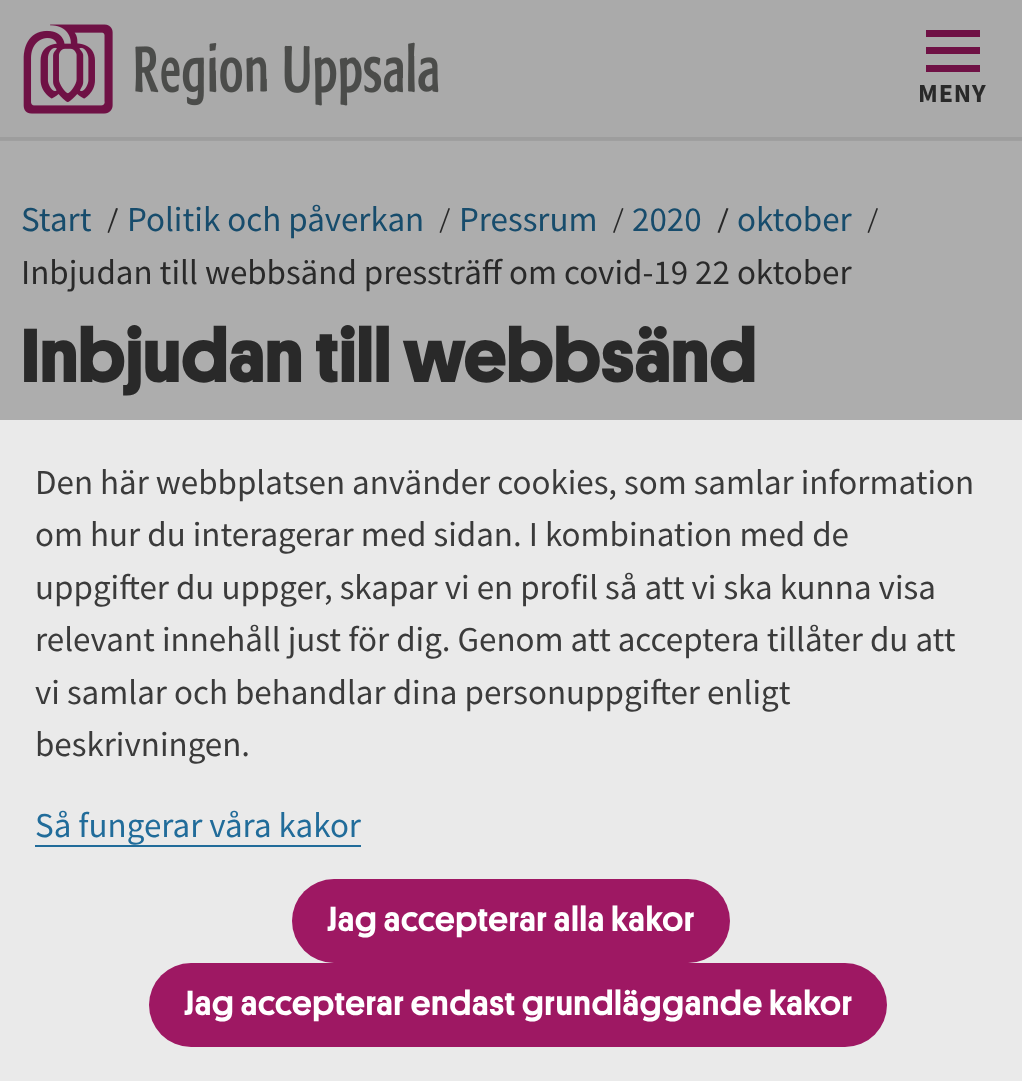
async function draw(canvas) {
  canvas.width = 1022;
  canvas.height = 1081;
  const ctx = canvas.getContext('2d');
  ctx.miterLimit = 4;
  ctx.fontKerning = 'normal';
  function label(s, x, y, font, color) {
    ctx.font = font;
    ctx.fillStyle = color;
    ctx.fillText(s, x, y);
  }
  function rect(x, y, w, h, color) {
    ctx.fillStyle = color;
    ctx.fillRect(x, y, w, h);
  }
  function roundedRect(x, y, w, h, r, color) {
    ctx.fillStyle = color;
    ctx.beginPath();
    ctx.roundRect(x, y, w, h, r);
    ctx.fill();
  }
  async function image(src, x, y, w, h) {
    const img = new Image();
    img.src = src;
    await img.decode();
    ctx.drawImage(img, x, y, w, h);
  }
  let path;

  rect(0, 0, 1022, 1081, '#adadad');
  rect(0, 0, 1022, 137, '#aaa');
  rect(0, 137, 1022, 3, '#9d9d9d');
  await image('assets/img1.png', 23, 24, 416, 90);
  ctx.fillStyle = '#6f1145';
  path = new Path2D('M926 65H980V72H926ZM926 47H980V54H926ZM926 30H980V37H926Z');
  ctx.fill(path);
  ctx.letterSpacing = '0.9px';
  label('MENY', 918, 102, 'bold 26px Source Sans Pro', '#292929');
  rect(0, 140, 1022, 1, '#9f9f9f');
  ctx.letterSpacing = '0px';
  label('Start', 21, 231, '35px Source Sans Pro', '#174c6c');
  ctx.fillStyle = '#292929';
  path = new Path2D('M116 208L118 208.5L109 233L107.5 232.5Z');
  ctx.fill(path);
  label('Politik och påverkan', 127, 231, '35px Source Sans Pro', '#174c6c');
  ctx.fillStyle = '#292929';
  path = new Path2D('M448.5 208L450 208.5L441 233L439.5 232.5Z');
  ctx.fill(path);
  label('Pressrum', 459, 231, '35px Source Sans Pro', '#174c6c');
  ctx.fillStyle = '#292929';
  path = new Path2D('M622 208L623.5 208.5L614.5 233L613 232.5Z');
  ctx.fill(path);
  label('2020', 632, 231, '35px Source Sans Pro', '#174c6c');
  ctx.fillStyle = '#292929';
  path = new Path2D('M726.5 208L728.5 208.5L719.5 233L717.5 232.5Z');
  ctx.fill(path);
  label('oktober', 737, 231, '35px Source Sans Pro', '#174c6c');
  ctx.fillStyle = '#292929';
  path = new Path2D('M876.5 208L878 208.5L869 233L867.5 232.5Z');
  ctx.fill(path);
  label('Inbjudan till webbsänd pressträff om covid-19 22 oktober', 21, 284, '35px Source Sans Pro', '#292929');
  label('Inbjudan till webbsänd', 21, 382, 'bold 77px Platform', '#292929');
  rect(0, 420, 1022, 661, '#eaeaea');
  label('Den här webbplatsen använder cookies, som samlar information', 35, 494, '35px Source Sans Pro', '#3b3b3b');
  label('om hur du interagerar med sidan. I kombination med de', 35, 546, '35px Source Sans Pro', '#3b3b3b');
  label('uppgifter du uppger, skapar vi en profil så att vi ska kunna visa', 35, 599, '35px Source Sans Pro', '#3b3b3b');
  label('relevant innehåll just för dig. Genom att acceptera tillåter du att', 35, 651, '35px Source Sans Pro', '#3b3b3b');
  label('vi samlar och behandlar dina personuppgifter enligt', 35, 704, '35px Source Sans Pro', '#3b3b3b');
  label('beskrivningen.', 35, 756, '35px Source Sans Pro', '#3b3b3b');
  label('Så fungerar våra kakor', 35, 837, '35px Source Sans Pro', '#216c9a');
  rect(35, 845, 326, 2, '#216c9a');
  roundedRect(292, 879, 438, 84, 42, '#9e1863');
  ctx.letterSpacing = '0.9px';
  label('Jag accepterar alla kakor', 327, 931, '500 35px Platform', '#fff');
  roundedRect(149, 963, 738, 84, 42, '#9e1863');
  label('Jag accepterar endast grundläggande kakor', 184, 1015, '500 35px Platform', '#fff');
}

draw(document.querySelector('canvas'));
